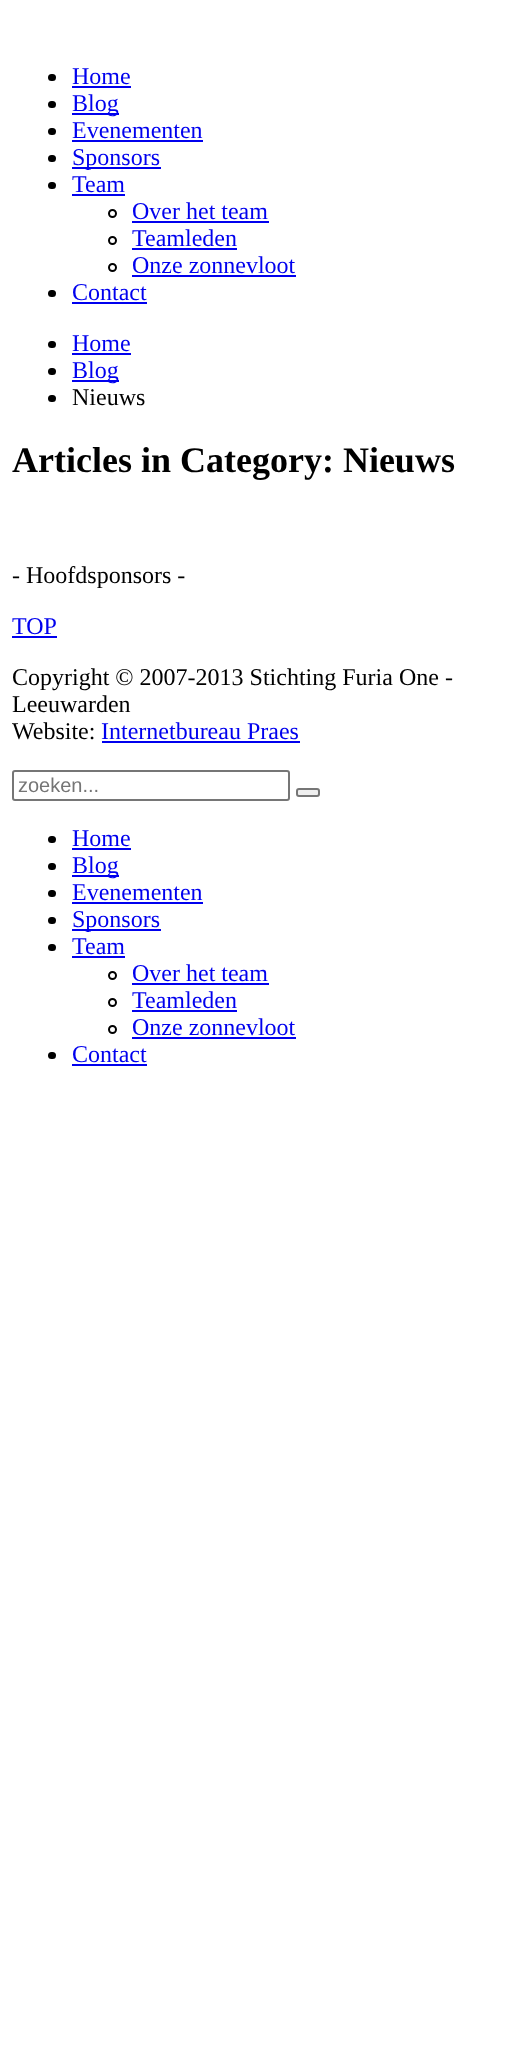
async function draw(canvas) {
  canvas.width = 505;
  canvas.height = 2054;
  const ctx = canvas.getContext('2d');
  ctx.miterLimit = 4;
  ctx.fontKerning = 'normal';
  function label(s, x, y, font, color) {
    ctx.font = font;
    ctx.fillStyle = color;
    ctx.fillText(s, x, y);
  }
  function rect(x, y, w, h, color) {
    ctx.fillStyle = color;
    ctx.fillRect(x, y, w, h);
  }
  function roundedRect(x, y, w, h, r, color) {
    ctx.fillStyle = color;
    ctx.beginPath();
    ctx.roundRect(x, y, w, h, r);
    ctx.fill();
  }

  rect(0, 0, 505, 2054, '#fff');
  roundedRect(48, 74, 8, 7, 3.5, '#000');
  label('Home', 72, 84, '24px Liberation Serif', '#00e');
  rect(72, 86, 59, 2, '#00e');
  roundedRect(48, 101, 8, 7, 3.5, '#000');
  rect(72, 113, 47, 2, '#00e');
  label('Blog', 72, 111, '24px Liberation Serif', '#00e');
  roundedRect(48, 128, 8, 7, 3.5, '#000');
  label('Evenementen', 72, 138, '24px Liberation Serif', '#00e');
  rect(72, 140, 131, 2, '#00e');
  roundedRect(48, 155, 8, 7, 3.5, '#000');
  rect(72, 167, 89, 2, '#00e');
  label('Sponsors', 72, 165, '24px Liberation Serif', '#00e');
  roundedRect(48, 182, 8, 7, 3.5, '#000');
  label('Team', 72, 192, '24px Liberation Serif', '#00e');
  rect(72, 194, 53, 2, '#00e');
  ctx.beginPath();
  ctx.arc(112.5, 213.5, 3.5, 0, 2 * Math.PI);
  ctx.strokeStyle = '#000';
  ctx.lineWidth = 2;
  ctx.stroke();
  label('Over het team', 132, 219, '24px Liberation Serif', '#00e');
  rect(132, 221, 137, 2, '#00e');
  ctx.beginPath();
  ctx.arc(112.5, 240.5, 3.5, 0, 2 * Math.PI);
  ctx.stroke();
  label('Teamleden', 132, 246, '24px Liberation Serif', '#00e');
  rect(132, 248, 105, 2, '#00e');
  ctx.beginPath();
  ctx.arc(112.5, 267.5, 3.5, 0, 2 * Math.PI);
  ctx.stroke();
  label('Onze zonnevloot', 132, 273, '24px Liberation Serif', '#00e');
  rect(132, 275, 164, 2, '#00e');
  roundedRect(48, 290, 8, 7, 3.5, '#000');
  label('Contact', 72, 300, '24px Liberation Serif', '#00e');
  rect(72, 302, 75, 2, '#00e');
  roundedRect(48, 341, 8, 7, 3.5, '#000');
  label('Home', 72, 351, '24px Liberation Serif', '#00e');
  rect(72, 353, 59, 2, '#00e');
  roundedRect(48, 368, 8, 7, 3.5, '#000');
  rect(72, 380, 47, 2, '#00e');
  label('Blog', 72, 378, '24px Liberation Serif', '#00e');
  roundedRect(48, 395, 8, 7, 3.5, '#000');
  label('Nieuws', 72, 405, '24px Liberation Serif', '#000');
  label('Articles in Category: Nieuws', 12, 472, 'bold 36px Liberation Serif', '#000');
  label('- Hoofdsponsors -', 12, 583, '24px Liberation Serif', '#000');
  label('TOP', 12, 634, '24px Liberation Serif', '#00e');
  rect(12, 636, 45, 2, '#00e');
  label('Copyright © 2007-2013 Stichting Furia One -', 12, 685, '24px Liberation Serif', '#000');
  label('Leeuwarden', 12, 712, '24px Liberation Serif', '#000');
  label('Website:', 12, 739, '24px Liberation Serif', '#000');
  label('Internetbureau Praes', 101, 739, '24px Liberation Serif', '#00e');
  rect(102, 741, 198, 2, '#00e');
  ctx.beginPath();
  ctx.roundRect(13, 771, 276, 29, 2);
  ctx.strokeStyle = '#767676';
  ctx.stroke();
  label('zoeken...', 18, 792, '20px Liberation Sans', '#757575');
  ctx.fillStyle = '#efefef';
  ctx.beginPath();
  ctx.roundRect(297, 789, 22, 7, 2);
  ctx.fill();
  ctx.stroke();
  roundedRect(48, 836, 8, 7, 3.5, '#000');
  label('Home', 72, 846, '24px Liberation Serif', '#00e');
  rect(72, 848, 59, 2, '#00e');
  roundedRect(48, 863, 8, 7, 3.5, '#000');
  rect(72, 875, 47, 2, '#00e');
  label('Blog', 72, 873, '24px Liberation Serif', '#00e');
  roundedRect(48, 890, 8, 7, 3.5, '#000');
  label('Evenementen', 72, 900, '24px Liberation Serif', '#00e');
  rect(72, 902, 131, 2, '#00e');
  roundedRect(48, 917, 8, 7, 3.5, '#000');
  rect(72, 929, 89, 2, '#00e');
  label('Sponsors', 72, 927, '24px Liberation Serif', '#00e');
  roundedRect(48, 944, 8, 7, 3.5, '#000');
  label('Team', 72, 954, '24px Liberation Serif', '#00e');
  rect(72, 956, 53, 2, '#00e');
  ctx.beginPath();
  ctx.arc(112.5, 975.5, 3.5, 0, 2 * Math.PI);
  ctx.strokeStyle = '#000';
  ctx.stroke();
  label('Over het team', 132, 981, '24px Liberation Serif', '#00e');
  rect(132, 983, 137, 2, '#00e');
  ctx.beginPath();
  ctx.arc(112.5, 1002.5, 3.5, 0, 2 * Math.PI);
  ctx.stroke();
  label('Teamleden', 132, 1008, '24px Liberation Serif', '#00e');
  rect(132, 1010, 105, 2, '#00e');
  ctx.beginPath();
  ctx.arc(112.5, 1029.5, 3.5, 0, 2 * Math.PI);
  ctx.stroke();
  label('Onze zonnevloot', 132, 1035, '24px Liberation Serif', '#00e');
  rect(132, 1037, 164, 2, '#00e');
  roundedRect(48, 1052, 8, 7, 3.5, '#000');
  label('Contact', 72, 1062, '24px Liberation Serif', '#00e');
  rect(72, 1064, 75, 2, '#00e');
}

draw(document.querySelector('canvas'));
